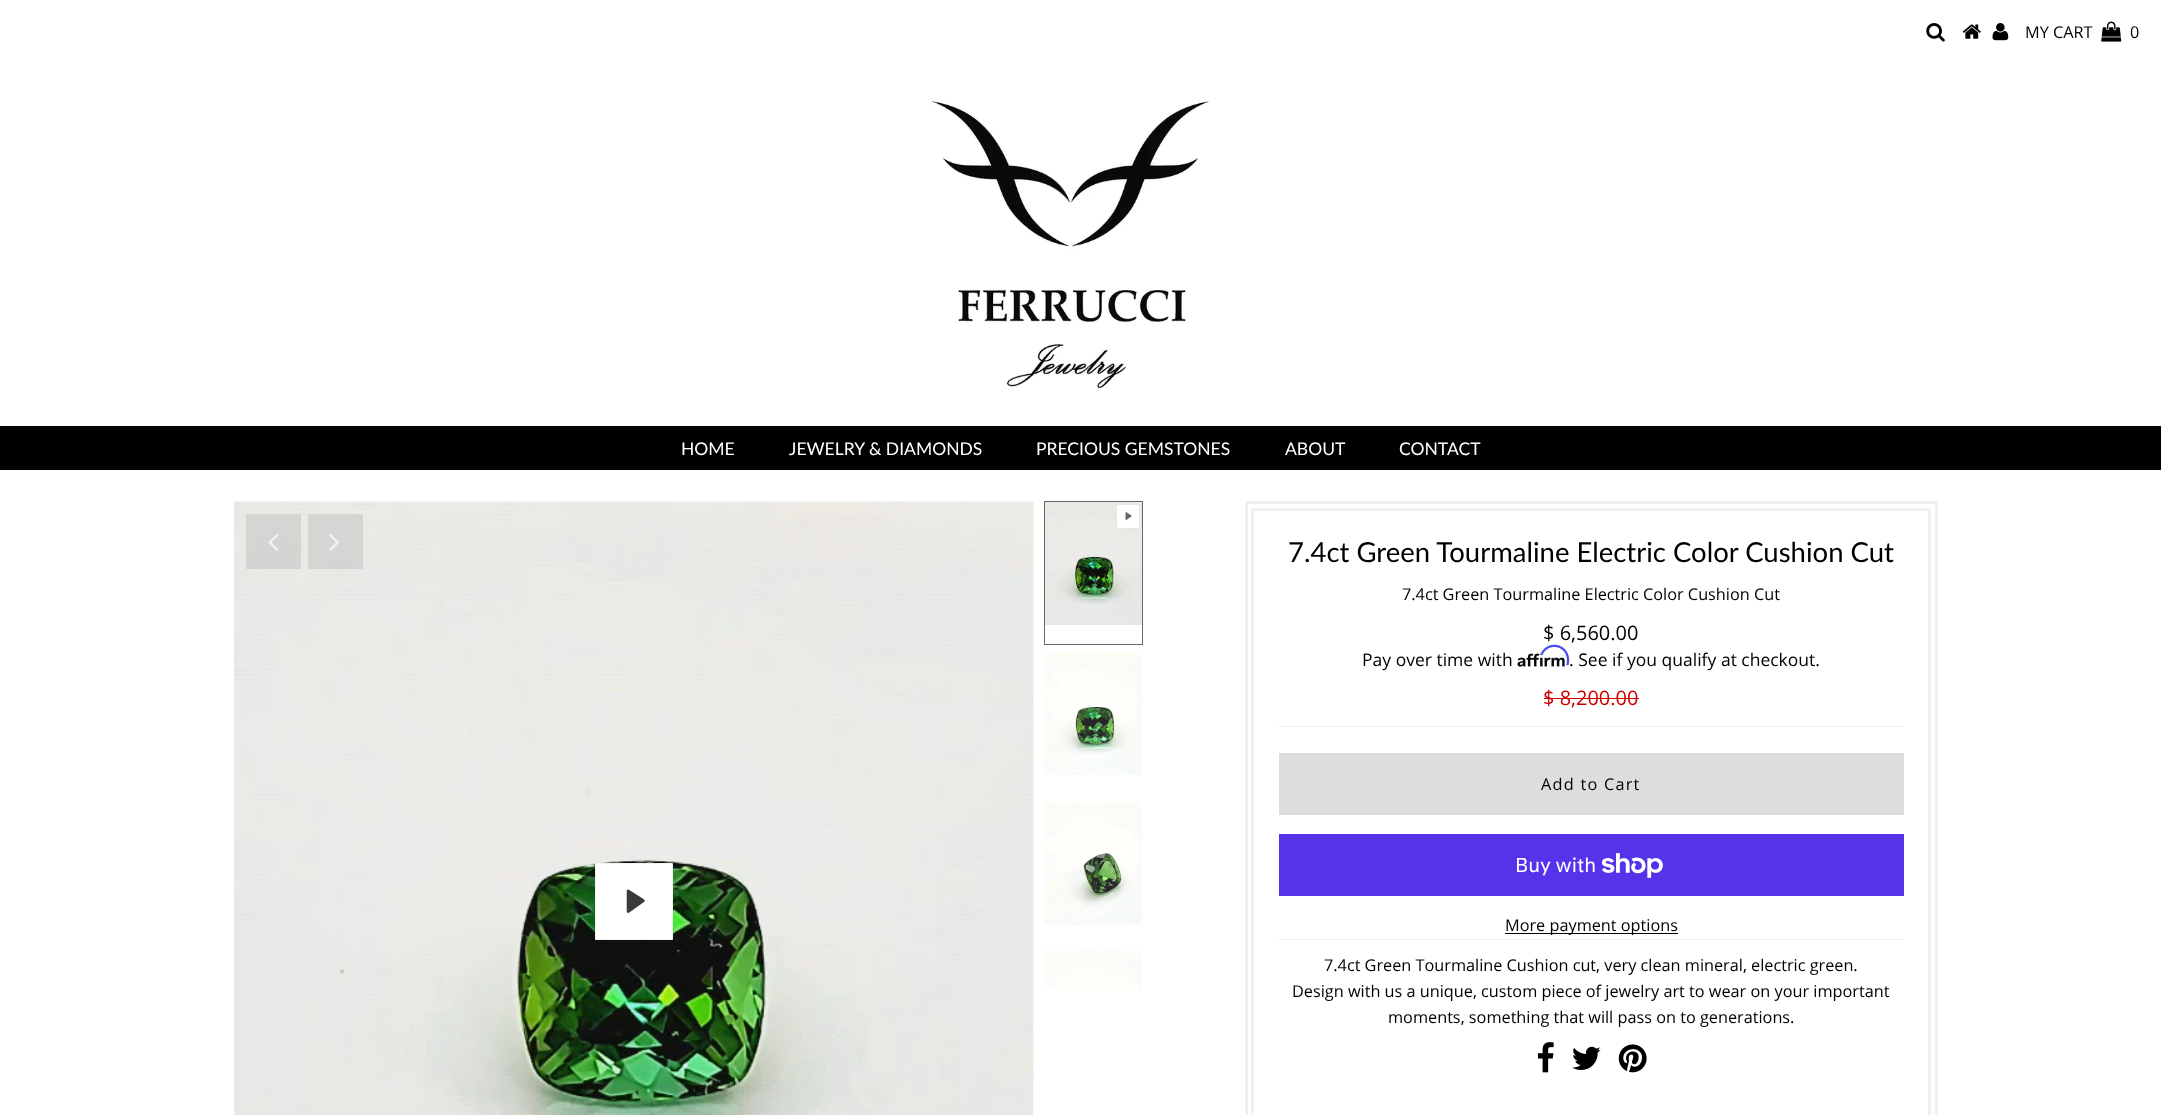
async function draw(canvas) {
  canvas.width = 2161;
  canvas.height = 1115;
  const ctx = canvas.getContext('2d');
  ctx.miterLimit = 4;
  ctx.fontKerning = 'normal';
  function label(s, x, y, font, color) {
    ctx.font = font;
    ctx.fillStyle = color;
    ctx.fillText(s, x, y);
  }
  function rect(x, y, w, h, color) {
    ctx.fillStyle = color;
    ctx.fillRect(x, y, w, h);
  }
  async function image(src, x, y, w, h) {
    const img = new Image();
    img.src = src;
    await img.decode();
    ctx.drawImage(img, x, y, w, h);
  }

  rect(0, 0, 2161, 1115, '#fff');
  await image('assets/img1.png', 1926, 23, 19, 19);
  await image('assets/img2.png', 1962, 24, 19, 15);
  await image('assets/img3.png', 1992, 23, 17, 18);
  label('MY CART', 2025, 38, '16.25px Open Sans', '#000');
  await image('assets/img4.png', 2101, 21, 21, 21);
  label('0', 2130, 38, '16.25px Open Sans', '#000');
  await image('assets/img5.png', 931, 100, 279, 288);
  rect(0, 426, 2161, 44, '#000');
  label('HOME', 681, 455, '17.5px Lato', '#fff');
  label('JEWELRY & DIAMONDS', 789, 455, '17.5px Lato', '#fff');
  label('PRECIOUS GEMSTONES', 1036, 455, '17.5px Lato', '#fff');
  label('ABOUT', 1285, 455, '17.5px Lato', '#fff');
  label('CONTACT', 1399, 455, '17.5px Lato', '#fff');
  await image('assets/img6.png', 234, 501, 800, 614);
  ctx.beginPath();
  ctx.rect(595.5, 863.5, 77, 76);
  ctx.fill();
  ctx.strokeStyle = '#f2f2f2';
  ctx.stroke();
  await image('assets/img7.png', 626, 889, 19, 24);
  rect(246, 514, 55, 55, '#ccccccb3');
  await image('assets/img8.png', 268, 534, 11, 17);
  rect(308, 514, 55, 55, '#ccccccb3');
  await image('assets/img9.png', 329, 534, 10, 17);
  await image('assets/img10.png', 1045, 502, 97, 123);
  ctx.strokeStyle = '#666';
  ctx.strokeRect(1044.5, 501.5, 98, 143);
  ctx.fillStyle = '#fff';
  ctx.beginPath();
  ctx.rect(1116.5, 504.5, 23, 24);
  ctx.fill();
  ctx.strokeStyle = '#e6e6e6';
  ctx.stroke();
  await image('assets/img11.png', 1125, 512, 7, 8);
  await image('assets/img12.png', 1044, 651, 98, 124);
  await image('assets/img13.png', 1044, 801, 98, 124);
  await image('assets/img14.png', 1044, 950, 98, 41);
  ctx.strokeStyle = '#f0f0f0';
  ctx.lineWidth = 3;
  ctx.strokeRect(1246.5, 502.5, 690, 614);
  ctx.strokeRect(1252.5, 509.5, 677, 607);
  label('7.4ct Green Tourmaline Electric Color Cushion Cut', 1288, 562, '27.5px Lato', '#000');
  label('7.4ct Green Tourmaline Electric Color Cushion Cut', 1402, 600, '16.25px Open Sans', '#000');
  rect(1279, 939, 625, 1, '#f0f0f0');
  rect(1279, 726, 625, 1, '#f0f0f0');
  label('$ 6,560.00', 1543, 640, '20px Open Sans', '#000');
  label('Pay over time with', 1362, 666, '17.5px Open Sans', '#000');
  await image('assets/img16.png', 1517, 653, 48, 14);
  await image('assets/img15.png', 1540, 644, 30, 22);
  label('. See if you qualify at checkout.', 1569, 666, '17.5px Open Sans', '#000');
  label('$ 8,200.00', 1543, 705, '20px Open Sans', '#c00');
  rect(1544, 698, 95, 1, '#c00');
  rect(1279, 753, 625, 62, '#ddd');
  ctx.letterSpacing = '1.25px';
  label('Add to Cart', 1541, 790, '16.25px Open Sans', '#000');
  rect(1279, 834, 625, 62, '#5433eb');
  ctx.letterSpacing = '0px';
  label('Buy with', 1515, 872, '20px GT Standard', '#fff');
  await image('assets/img17.png', 1601, 853, 62, 25);
  rect(1505, 933, 173, 1, '#000');
  label('More payment options', 1505, 931, '16.25px Open Sans', '#000');
  label('7.4ct Green Tourmaline Cushion cut, very clean mineral, electric green.', 1324, 971, '16.25px Open Sans', '#000');
  label('Design with us a unique, custom piece of jewelry art to wear on your important', 1292, 997, '16.25px Open Sans', '#000');
  label('moments, something that will pass on to generations.', 1388, 1023, '16.25px Open Sans', '#000');
  await image('assets/img18.png', 1537, 1042, 17, 31);
  await image('assets/img19.png', 1572, 1046, 29, 24);
  await image('assets/img20.png', 1618, 1044, 29, 29);
}

draw(document.querySelector('canvas'));
